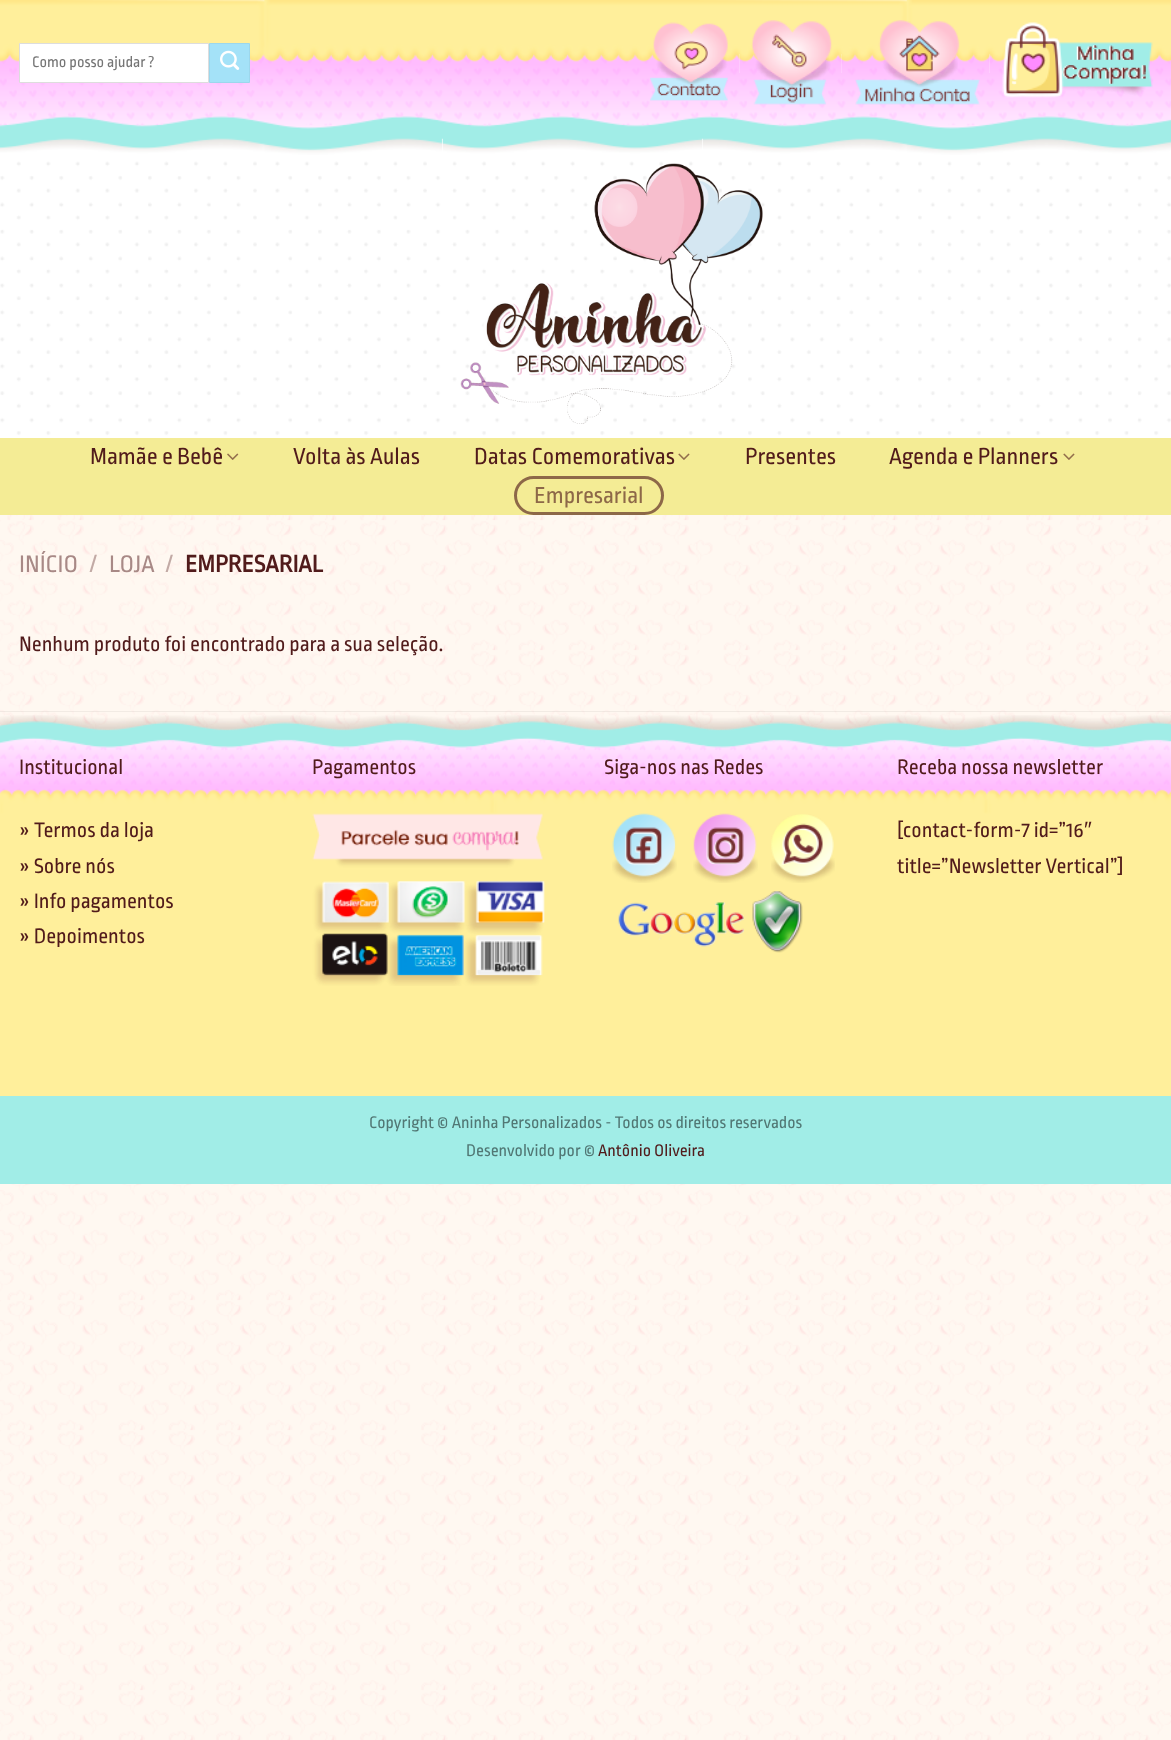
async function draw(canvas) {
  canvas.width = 1171;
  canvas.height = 1740;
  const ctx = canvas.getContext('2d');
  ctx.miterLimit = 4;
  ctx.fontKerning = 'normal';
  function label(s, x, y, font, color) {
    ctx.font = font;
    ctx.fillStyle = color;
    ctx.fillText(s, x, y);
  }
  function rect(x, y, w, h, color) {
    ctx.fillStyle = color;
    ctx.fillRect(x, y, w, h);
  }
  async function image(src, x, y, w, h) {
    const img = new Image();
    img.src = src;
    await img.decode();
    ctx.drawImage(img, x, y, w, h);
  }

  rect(0, 0, 1171, 1740, '#fff');
  await image('assets/img1.png', 0, 515, 1171, 1225);
  await image('assets/img2.png', 0, 0, 1171, 438);
  ctx.beginPath();
  ctx.rect(19.5, 43.5, 189, 39);
  ctx.fill();
  ctx.strokeStyle = '#ddd';
  ctx.stroke();
  label('Como posso ajudar ?', 32, 67, '16px Ropa Sans', '#757575');
  ctx.fillStyle = '#a4e2f8';
  ctx.beginPath();
  ctx.rect(209.5, 43.5, 40, 39);
  ctx.fill();
  ctx.strokeStyle = '#9cd7ec';
  ctx.stroke();
  await image('assets/img3.png', 220, 50, 20, 20);
  await image('assets/img4.png', 650, 22, 78, 79);
  rect(739, 54, 1, 19, '#ffffff33');
  await image('assets/img5.png', 751, 20, 81, 85);
  rect(841, 54, 1, 19, '#ffffff33');
  await image('assets/img6.png', 855, 20, 125, 85);
  rect(989, 54, 1, 19, '#ffffff33');
  await image('assets/img7.png', 1002, 22, 151, 76);
  await image('assets/img8.png', 441, 138, 322, 286);
  rect(0, 438, 1171, 77, '#f4ec95');
  label('Mamãe e Bebê', 90, 464, '24.25px Ropa Sans', '#511b1b');
  await image('assets/img9.png', 227, 453, 12, 7);
  label('Volta às Aulas', 293, 464, '24.25px Ropa Sans', '#511b1b');
  label('Datas Comemorativas', 474, 464, '24.25px Ropa Sans', '#511b1b');
  await image('assets/img10.png', 678, 453, 12, 7);
  label('Presentes', 745, 464, '24.25px Ropa Sans', '#511b1b');
  label('Agenda e Planners', 889, 464, '24.25px Ropa Sans', '#511b1b');
  await image('assets/img10.png', 1063, 453, 12, 7);
  ctx.beginPath();
  ctx.roundRect(515.5, 477.5, 147, 36, 18);
  ctx.strokeStyle = '#8d6848';
  ctx.lineWidth = 3;
  ctx.stroke();
  label('Empresarial', 534, 503, '24.25px Ropa Sans', '#8d6848');
  label('INÍCIO', 19, 572, '25.25px Ropa Sans', '#a88986');
  label('/', 90, 572, '25.25px Ropa Sans', '#c2aaa5');
  label('LOJA', 109, 572, '25.25px Ropa Sans', '#a88986');
  label('/', 166, 572, '25.25px Ropa Sans', '#c2aaa5');
  label('EMPRESARIAL', 185, 572, 'bold 25.25px Ropa Sans', '#511b1b');
  label('Nenhum produto foi encontrado para a sua seleção.', 19, 651, '22px Ropa Sans', '#511b1b');
  await image('assets/img11.png', 0, 715, 1171, 381);
  rect(0, 711, 1171, 1, '#0000000d');
  label('Institucional', 19, 774, '22px Ropa Sans', '#511b1b');
  label('» Termos da loja', 19, 837, '22px Ropa Sans', '#511b1b');
  label('» Sobre nós', 19, 873, '22px Ropa Sans', '#511b1b');
  label('» Info pagamentos', 19, 908, '22px Ropa Sans', '#511b1b');
  label('» Depoimentos', 19, 943, '22px Ropa Sans', '#511b1b');
  label('Pagamentos', 312, 774, '22px Ropa Sans', '#511b1b');
  await image('assets/img12.png', 312, 813, 233, 173);
  label('Siga-nos nas Redes', 604, 774, '22px Ropa Sans', '#511b1b');
  await image('assets/img13.png', 612, 813, 65, 70);
  await image('assets/img14.png', 693, 813, 65, 70);
  await image('assets/img15.png', 771, 814, 64, 69);
  await image('assets/img16.png', 618, 891, 185, 62);
  label('Receba nossa newsletter', 897, 774, '22px Ropa Sans', '#511b1b');
  label('[contact-form-7 id=”16', 897, 837, '22px Ropa Sans', '#511b1b');
  label('″', 1084, 837, '22px Liberation Sans', '#511b1b');
  label('title=”Newsletter Vertical”]', 897, 873, '22px Ropa Sans', '#511b1b');
  rect(0, 1096, 1171, 88, '#a1ede7');
  label('Copyright © Aninha Personalizados - Todos os direitos reservados', 369, 1128, '17.6px Ropa Sans', '#517774');
  label('Desenvolvido por ©', 466, 1156, '17.6px Ropa Sans', '#517774');
  label('Antônio Oliveira', 598, 1156, '17.6px Ropa Sans', '#511b1b');
}

draw(document.querySelector('canvas'));
